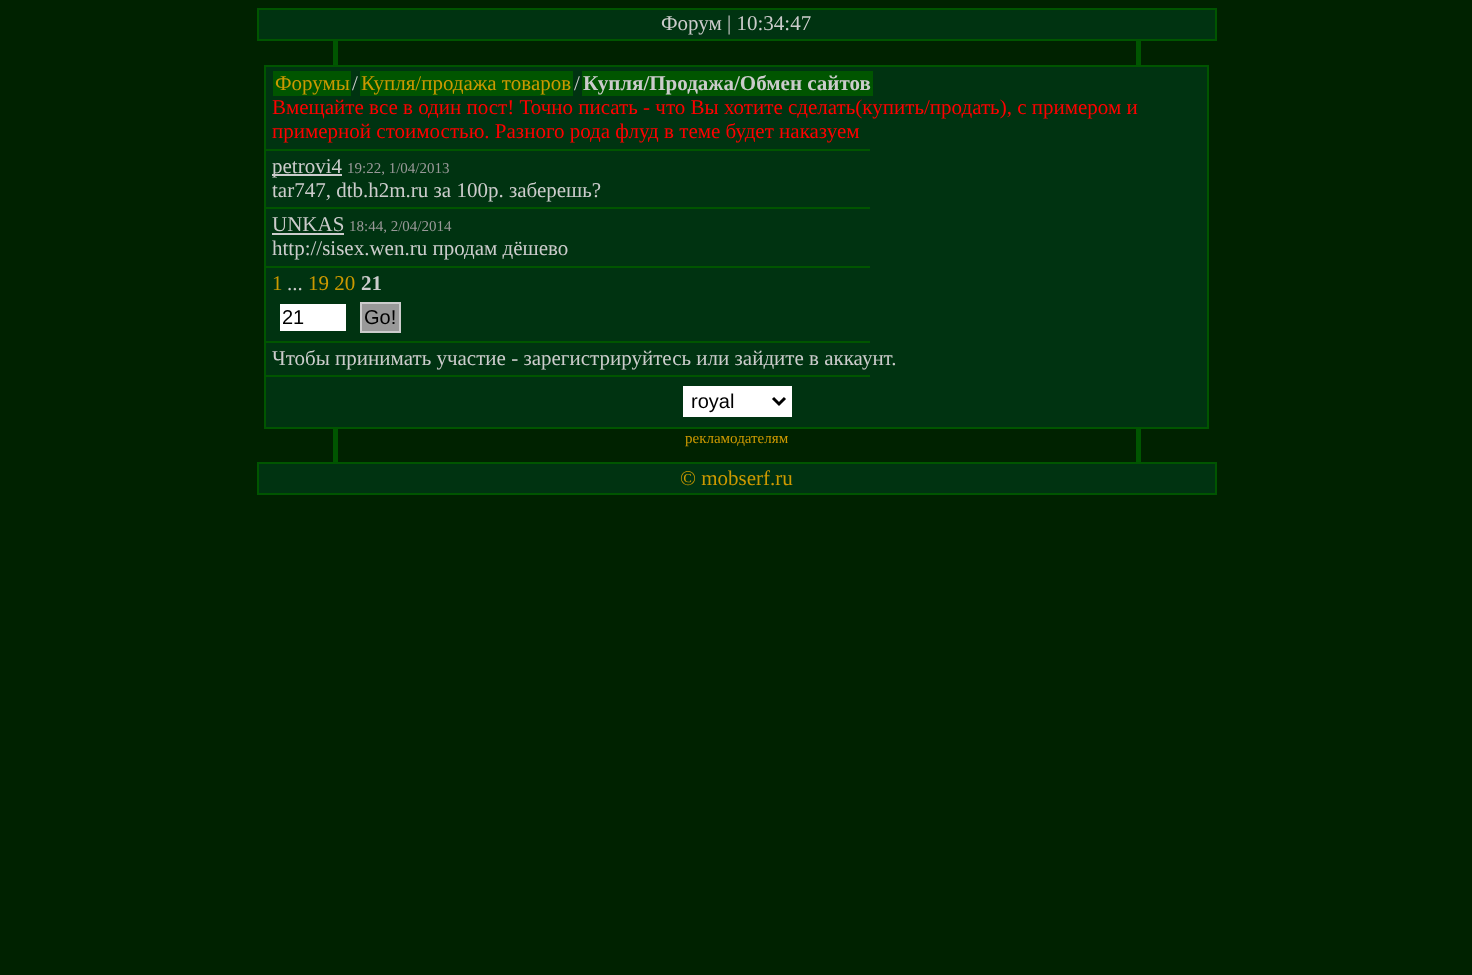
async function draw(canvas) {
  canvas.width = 1472;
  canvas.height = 975;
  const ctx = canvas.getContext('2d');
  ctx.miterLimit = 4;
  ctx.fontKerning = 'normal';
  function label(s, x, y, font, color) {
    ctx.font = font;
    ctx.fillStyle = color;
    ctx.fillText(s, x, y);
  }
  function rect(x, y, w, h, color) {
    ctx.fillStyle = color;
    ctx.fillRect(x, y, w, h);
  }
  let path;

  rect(0, 0, 1472, 975, '#020');
  ctx.fillStyle = '#031';
  ctx.beginPath();
  ctx.rect(258, 9, 958, 31);
  ctx.fill();
  ctx.strokeStyle = '#050';
  ctx.lineWidth = 2;
  ctx.stroke();
  label('Форум | 10:34:47', 661, 30, '21px Liberation Serif', '#ccc');
  rect(1136, 41, 5, 24, '#050');
  rect(333, 41, 5, 24, '#050');
  ctx.fillStyle = '#031';
  ctx.beginPath();
  ctx.rect(265, 66, 943, 362);
  ctx.fill();
  ctx.stroke();
  rect(273, 71, 78, 25, '#050');
  label('Форумы', 275, 90, '21px Liberation Serif', '#c90');
  label('/', 352, 90, '21px Liberation Serif', '#ccc');
  rect(360, 71, 213, 25, '#050');
  label('Купля/продажа товаров', 361, 90, '21px Liberation Serif', '#c90');
  label('/', 574, 90, '21px Liberation Serif', '#ccc');
  rect(582, 71, 291, 25, '#050');
  label('Купля/Продажа/Обмен сайтов', 583, 90, 'bold 21px Liberation Serif', '#ccc');
  label('Вмещайте все в один пост! Точно писать - что Вы хотите сделать(купить/продать), с примером и', 272, 114, '21px Liberation Serif', '#f00');
  label('примерной стоимостью. Разного рода флуд в теме будет наказуем', 272, 138, '21px Liberation Serif', '#f00');
  rect(266, 149, 604, 2, '#050');
  rect(272, 174, 70, 2, '#ccc');
  label('petrovi4', 272, 173, '21px Liberation Serif', '#ccc');
  label('19:22, 1/04/2013', 347, 173, '15px Liberation Serif', '#999');
  label('tar747, dtb.h2m.ru за 100р. заберешь?', 272, 197, '21px Liberation Serif', '#ccc');
  rect(266, 207, 604, 2, '#050');
  label('UNKAS', 272, 231, '21px Liberation Serif', '#ccc');
  rect(272, 233, 72, 2, '#ccc');
  label('18:44, 2/04/2014', 349, 231, '15px Liberation Serif', '#999');
  label('http://sisex.wen.ru продам дёшево', 272, 255, '21px Liberation Serif', '#ccc');
  rect(266, 266, 604, 2, '#050');
  label('1', 272, 290, '21px Liberation Serif', '#c90');
  label('...', 287, 290, '21px Liberation Serif', '#ccc');
  label('19 20', 308, 290, '21px Liberation Serif', '#c90');
  label('21', 361, 290, 'bold 21px Liberation Serif', '#ccc');
  rect(280, 304, 66, 27, '#fff');
  label('21', 282, 324, '20px Liberation Sans', '#000');
  ctx.fillStyle = '#999';
  ctx.beginPath();
  ctx.rect(361, 303, 39, 29);
  ctx.fill();
  ctx.strokeStyle = '#ccc';
  ctx.stroke();
  label('Go!', 364, 324, '20px Liberation Sans', '#000');
  rect(266, 341, 604, 2, '#050');
  label('Чтобы принимать участие - зарегистрируйтесь или зайдите в аккаунт.', 272, 365, '21px Liberation Serif', '#ccc');
  rect(266, 375, 604, 2, '#050');
  rect(683, 386, 109, 31, '#fff');
  path = new Path2D('M773 398L779 404L785 398');
  ctx.strokeStyle = '#000';
  ctx.lineWidth = 3;
  ctx.stroke(path);
  label('royal', 691, 408, '20px Liberation Sans', '#000');
  rect(1136, 429, 5, 33, '#050');
  rect(333, 429, 5, 33, '#050');
  label('рекламодателям', 685, 443, '15px Liberation Serif', '#c90');
  ctx.fillStyle = '#031';
  ctx.beginPath();
  ctx.rect(258, 463, 958, 31);
  ctx.fill();
  ctx.strokeStyle = '#050';
  ctx.lineWidth = 2;
  ctx.stroke();
  label('© mobserf.ru', 680, 485, '21px Liberation Serif', '#c90');
}

draw(document.querySelector('canvas'));
